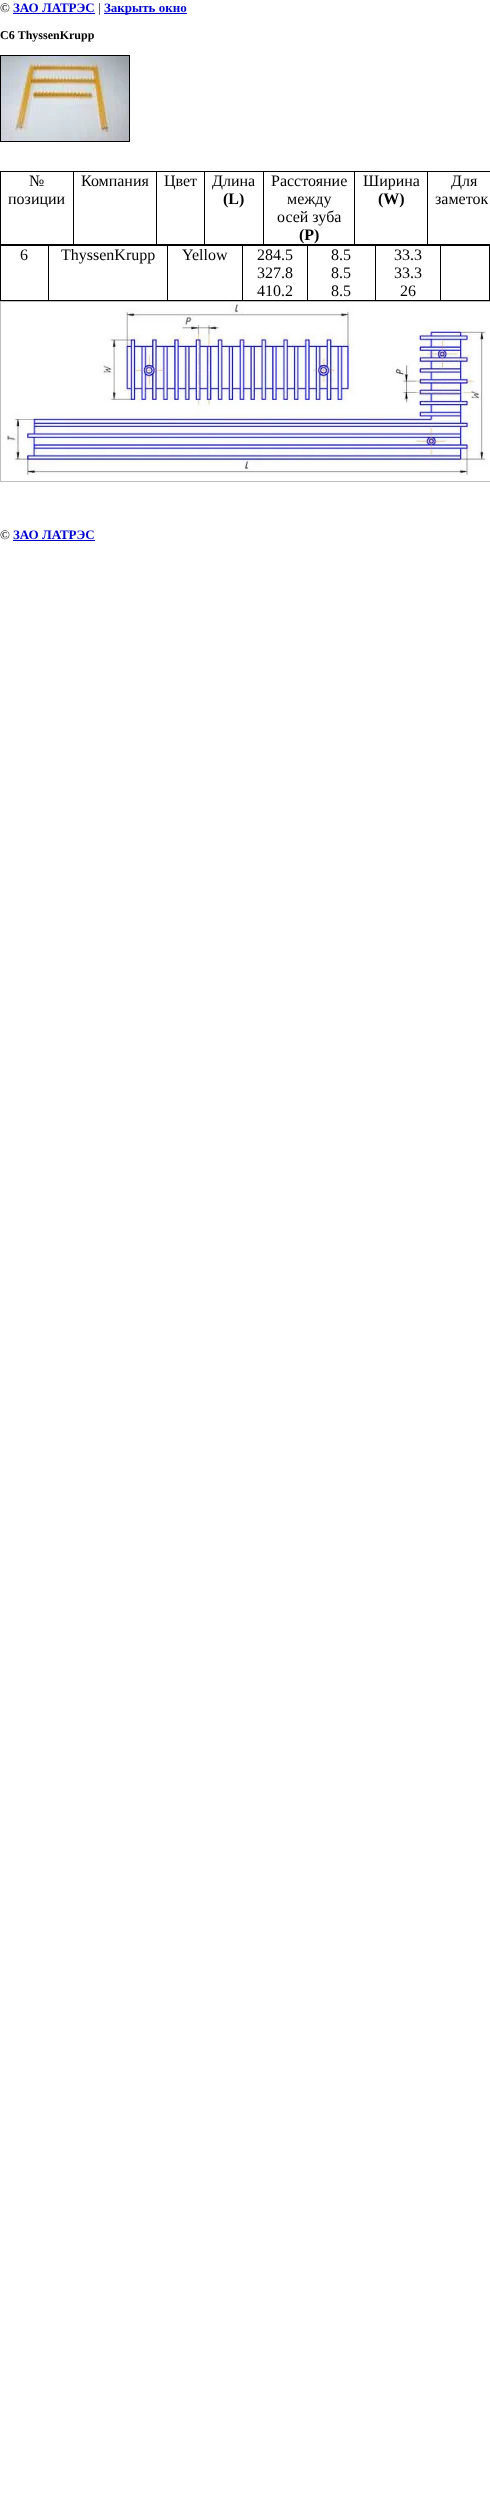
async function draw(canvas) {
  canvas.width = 490;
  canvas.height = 2514;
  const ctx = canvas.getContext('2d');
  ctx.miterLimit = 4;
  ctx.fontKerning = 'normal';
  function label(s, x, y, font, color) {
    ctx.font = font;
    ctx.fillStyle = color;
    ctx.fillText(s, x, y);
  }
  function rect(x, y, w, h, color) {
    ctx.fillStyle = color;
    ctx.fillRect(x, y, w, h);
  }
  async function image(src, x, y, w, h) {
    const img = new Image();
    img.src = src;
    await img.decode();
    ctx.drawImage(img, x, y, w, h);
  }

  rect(0, 0, 490, 2514, '#fff');
  label('©', 0, 12, '13px Liberation Serif', '#000');
  label('ЗАО ЛАТРЭС', 13, 12, 'bold 13px Liberation Serif', '#00c');
  rect(13, 13, 82, 1, '#00c');
  label('|', 98, 12, '13px Liberation Serif', '#000');
  rect(104, 13, 83, 1, '#00c');
  label('Закрыть окно', 104, 12, 'bold 13px Liberation Serif', '#00c');
  label('С6 ThyssenKrupp', 0, 39, 'bold 12px Liberation Serif', '#000');
  ctx.strokeStyle = '#000';
  ctx.strokeRect(0.5, 55.5, 129, 86);
  await image('assets/img1.png', 1, 56, 128, 85);
  rect(0, 171, 490, 1, '#000');
  rect(427, 244, 63, 1, '#000');
  rect(427, 171, 1, 74, '#000');
  rect(354, 244, 74, 1, '#000');
  rect(354, 171, 1, 74, '#000');
  rect(263, 244, 92, 1, '#000');
  rect(263, 171, 1, 74, '#000');
  rect(204, 244, 60, 1, '#000');
  rect(204, 171, 1, 74, '#000');
  rect(156, 244, 49, 1, '#000');
  rect(156, 171, 1, 74, '#000');
  rect(73, 244, 84, 1, '#000');
  rect(73, 171, 1, 74, '#000');
  rect(0, 244, 74, 1, '#000');
  rect(0, 171, 1, 74, '#000');
  label('№', 29, 186, '16px Liberation Serif', '#000');
  label('позиции', 8, 204, '16px Liberation Serif', '#000');
  label('Компания', 81, 186, '16px Liberation Serif', '#000');
  label('Цвет', 164, 186, '16px Liberation Serif', '#000');
  label('Длина', 212, 186, '16px Liberation Serif', '#000');
  label('(L)', 223, 204, 'bold 16px Liberation Serif', '#000');
  label('Расстояние', 271, 186, '16px Liberation Serif', '#000');
  label('между', 287, 204, '16px Liberation Serif', '#000');
  label('осей зуба', 277, 222, '16px Liberation Serif', '#000');
  label('(Р)', 299, 240, 'bold 16px Liberation Serif', '#000');
  label('Ширина', 363, 186, '16px Liberation Serif', '#000');
  label('(W)', 378, 204, 'bold 16px Liberation Serif', '#000');
  label('Для', 451, 186, '16px Liberation Serif', '#000');
  label('заметок', 435, 204, '16px Liberation Serif', '#000');
  rect(0, 245, 490, 1, '#000');
  rect(489, 245, 1, 56, '#000');
  rect(440, 300, 50, 1, '#000');
  rect(440, 245, 1, 56, '#000');
  rect(375, 300, 66, 1, '#000');
  rect(375, 245, 1, 56, '#000');
  rect(307, 300, 69, 1, '#000');
  rect(307, 245, 1, 56, '#000');
  rect(242, 300, 66, 1, '#000');
  rect(242, 245, 1, 56, '#000');
  rect(167, 300, 76, 1, '#000');
  rect(167, 245, 1, 56, '#000');
  rect(48, 300, 120, 1, '#000');
  rect(48, 245, 1, 56, '#000');
  rect(0, 300, 49, 1, '#000');
  rect(0, 245, 1, 56, '#000');
  label('6', 20, 260, '16px Liberation Serif', '#000');
  label('ThyssenKrupp', 61, 260, '16px Liberation Serif', '#000');
  label('Yellow', 182, 260, '16px Liberation Serif', '#000');
  label('284.5', 257, 260, '16px Liberation Serif', '#000');
  label('327.8', 257, 278, '16px Liberation Serif', '#000');
  label('410.2', 257, 296, '16px Liberation Serif', '#000');
  label('8.5', 331, 260, '16px Liberation Serif', '#000');
  label('8.5', 331, 278, '16px Liberation Serif', '#000');
  label('8.5', 331, 296, '16px Liberation Serif', '#000');
  label('33.3', 394, 260, '16px Liberation Serif', '#000');
  label('33.3', 394, 278, '16px Liberation Serif', '#000');
  label('26', 400, 296, '16px Liberation Serif', '#000');
  ctx.strokeStyle = '#c0c0c0';
  ctx.strokeRect(0.5, 301.5, 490, 180);
  await image('assets/img2.png', 7, 302, 480, 174);
  label('©', 0, 539, '13px Liberation Serif', '#000');
  label('ЗАО ЛАТРЭС', 13, 539, 'bold 13px Liberation Serif', '#00c');
  rect(13, 540, 82, 1, '#00c');
}

draw(document.querySelector('canvas'));
